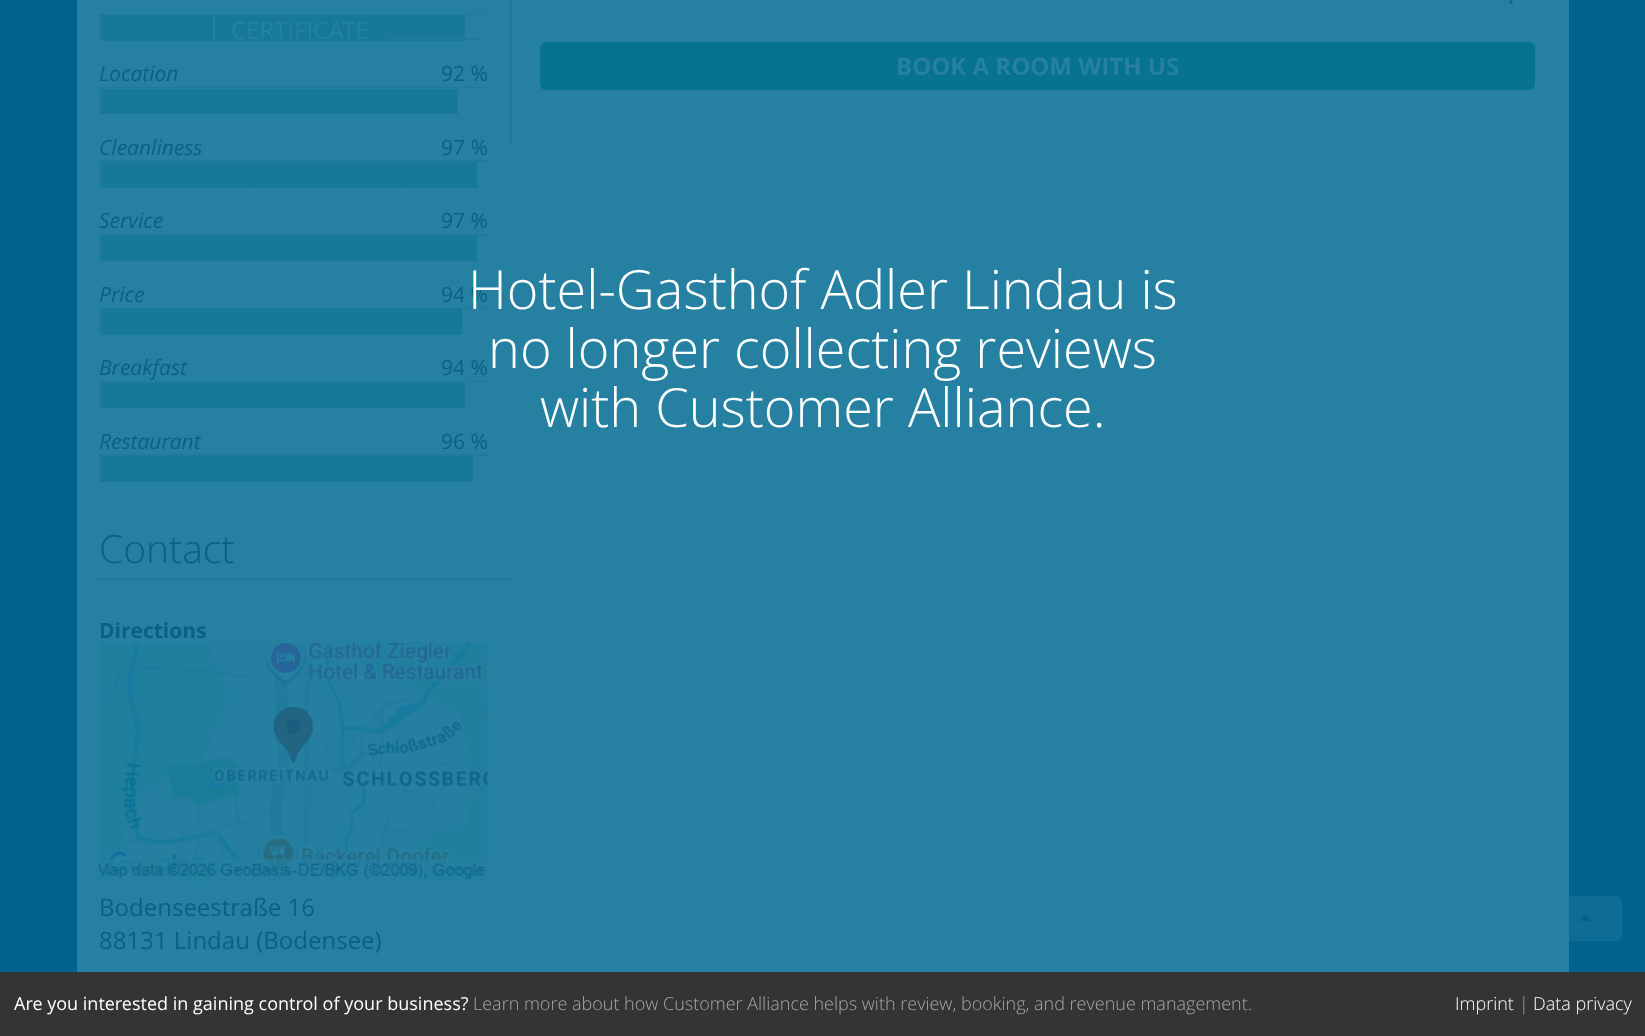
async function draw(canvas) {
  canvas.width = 1645;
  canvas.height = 1036;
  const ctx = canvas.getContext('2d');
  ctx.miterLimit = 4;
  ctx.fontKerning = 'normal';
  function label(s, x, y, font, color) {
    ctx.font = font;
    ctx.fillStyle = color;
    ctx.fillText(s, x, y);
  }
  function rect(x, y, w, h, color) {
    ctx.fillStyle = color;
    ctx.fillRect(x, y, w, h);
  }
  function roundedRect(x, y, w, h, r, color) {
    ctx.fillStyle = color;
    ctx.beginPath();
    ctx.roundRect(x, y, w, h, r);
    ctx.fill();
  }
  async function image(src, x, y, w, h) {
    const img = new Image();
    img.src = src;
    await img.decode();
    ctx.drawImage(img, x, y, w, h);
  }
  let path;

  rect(0, 0, 1645, 1036, '#02628e');
  rect(77, 0, 1492, 972, '#2680a2');
  rect(510, 0, 2, 146, '#1f799a');
  label('.', 1508, 3, '24px Open Sans', '#086283');
  roundedRect(540, 42, 995, 48, 6, '#087292');
  label('BOOK A ROOM WITH US', 896, 75, 'bold 24px Open Sans', '#2680a2');
  ctx.fillStyle = '#207a9b';
  path = new Path2D('M99 14H488V15H100Z');
  ctx.fill(path);
  ctx.fillStyle = '#1e7899cc';
  path = new Path2D('M99 40.5V13.5L100.5 15V40.5Z');
  ctx.fill(path);
  rect(101, 15, 364, 26, '#17799a');
  rect(174, 18, 3, 20, '#167797');
  rect(251, 18, 3, 20, '#167797');
  rect(329, 18, 3, 20, '#167797');
  rect(405, 18, 3, 20, '#167797');
  label('Location', 99, 81, 'italic 21px Open Sans', '#086283');
  label('92 %', 441, 81, '21px Open Sans', '#086283');
  ctx.fillStyle = '#207a9b';
  path = new Path2D('M99 87H488V88H100Z');
  ctx.fill(path);
  ctx.fillStyle = '#1e7899cc';
  path = new Path2D('M99 114V87L100.5 88.5V114Z');
  ctx.fill(path);
  rect(101, 89, 357, 25, '#17799a');
  rect(174, 92, 3, 19, '#167797');
  rect(251, 92, 3, 19, '#167797');
  rect(329, 92, 3, 19, '#167797');
  rect(405, 92, 3, 19, '#167797');
  label('Cleanliness', 99, 155, 'italic 21px Open Sans', '#086283');
  label('97 %', 441, 155, '21px Open Sans', '#086283');
  ctx.fillStyle = '#207a9b';
  path = new Path2D('M99 160H488V162H100Z');
  ctx.fill(path);
  ctx.fillStyle = '#1e7899cc';
  path = new Path2D('M99 187.5V160.5L100.5 162V187.5Z');
  ctx.fill(path);
  rect(101, 162, 376, 26, '#17799a');
  rect(174, 165, 3, 20, '#167797');
  rect(251, 165, 3, 20, '#167797');
  rect(329, 165, 3, 20, '#167797');
  rect(405, 165, 3, 20, '#167797');
  label('Service', 99, 228, 'italic 21px Open Sans', '#086283');
  label('97 %', 441, 228, '21px Open Sans', '#086283');
  ctx.fillStyle = '#207a9b';
  path = new Path2D('M99 234H488V236H100Z');
  ctx.fill(path);
  ctx.fillStyle = '#1e7899cc';
  path = new Path2D('M99 261V234L100.5 235.5V261Z');
  ctx.fill(path);
  rect(101, 236, 376, 25, '#17799a');
  rect(174, 239, 3, 19, '#167797');
  rect(251, 239, 3, 19, '#167797');
  rect(329, 239, 3, 19, '#167797');
  rect(405, 239, 3, 19, '#167797');
  label('Price', 99, 302, 'italic 21px Open Sans', '#086283');
  label('94 %', 441, 302, '21px Open Sans', '#086283');
  ctx.fillStyle = '#207a9b';
  path = new Path2D('M99 308H488V309H100Z');
  ctx.fill(path);
  ctx.fillStyle = '#1e7899cc';
  path = new Path2D('M99 334.5V307.5L100.5 309V334.5Z');
  ctx.fill(path);
  rect(101, 309, 361, 26, '#17799a');
  rect(174, 312, 3, 20, '#167797');
  rect(251, 312, 3, 20, '#167797');
  rect(329, 312, 3, 20, '#167797');
  rect(405, 312, 3, 20, '#167797');
  label('Breakfast', 99, 375, 'italic 21px Open Sans', '#086283');
  label('94 %', 441, 375, '21px Open Sans', '#086283');
  ctx.fillStyle = '#207a9b';
  path = new Path2D('M99 381H488V382H100Z');
  ctx.fill(path);
  ctx.fillStyle = '#1e7899cc';
  path = new Path2D('M99 408V381L100.5 382.5V408Z');
  ctx.fill(path);
  rect(101, 383, 364, 25, '#17799a');
  rect(174, 386, 3, 19, '#167797');
  rect(251, 386, 3, 19, '#167797');
  rect(329, 386, 3, 19, '#167797');
  rect(405, 386, 3, 19, '#167797');
  label('Restaurant', 99, 449, 'italic 21px Open Sans', '#086283');
  label('96 %', 441, 449, '21px Open Sans', '#086283');
  ctx.fillStyle = '#207a9b';
  path = new Path2D('M99 454H488V456H100Z');
  ctx.fill(path);
  ctx.fillStyle = '#1e7899cc';
  path = new Path2D('M99 481.5V454.5L100.5 456V481.5Z');
  ctx.fill(path);
  rect(101, 456, 372, 26, '#17799a');
  rect(174, 459, 3, 20, '#167797');
  rect(251, 459, 3, 20, '#167797');
  rect(329, 459, 3, 20, '#167797');
  rect(405, 459, 3, 20, '#167797');
  rect(99, 578, 411, 2, '#1f799a');
  label('Contact', 99, 563, '300 39px Open Sans', '#086283');
  label('Directions', 99, 638, 'bold 21px Open Sans', '#086283');
  await image('assets/img1.png', 99, 643, 389, 239);
  label('Bodenseestraße 16', 99, 916, '24px Open Sans', '#086283');
  label('88131 Lindau (Bodensee)', 99, 949, '24px Open Sans', '#086283');
  rect(213, 14, 2, 33, '#2680a2');
  label('CERTIFICATE', 231, 39, '24px Open Sans', '#2680a2');
  rect(387, 38, 92, 2, '#1f799a');
  label('Hotel-Gasthof Adler Lindau is', 468, 309, '300 54px Open Sans', '#fff');
  label('no longer collecting reviews', 488, 368, '300 54px Open Sans', '#fff');
  label('with Customer Alliance.', 540, 427, '300 54px Open Sans', '#fff');
  roundedRect(1415, 896, 207, 45, 6, '#2680a259');
  ctx.fillStyle = '#04628a';
  path = new Path2D('M1591.5 921H1579.5L1585.5 915Z');
  ctx.fill(path);
  rect(0, 972, 1645, 64, '#343434');
  label('Are you interested in gaining control of your business?', 14, 1010, '18px Open Sans', '#fff');
  label('Learn more about how Customer Alliance helps with review, booking, and revenue management.', 473, 1010, '300 18px Open Sans', '#a6a6a6');
  label('Imprint', 1455, 1010, '300 18px Open Sans', '#fff');
  label('|', 1519, 1010, '300 18px Open Sans', '#a6a6a6');
  label('Data privacy', 1533, 1010, '300 18px Open Sans', '#fff');
}

draw(document.querySelector('canvas'));
